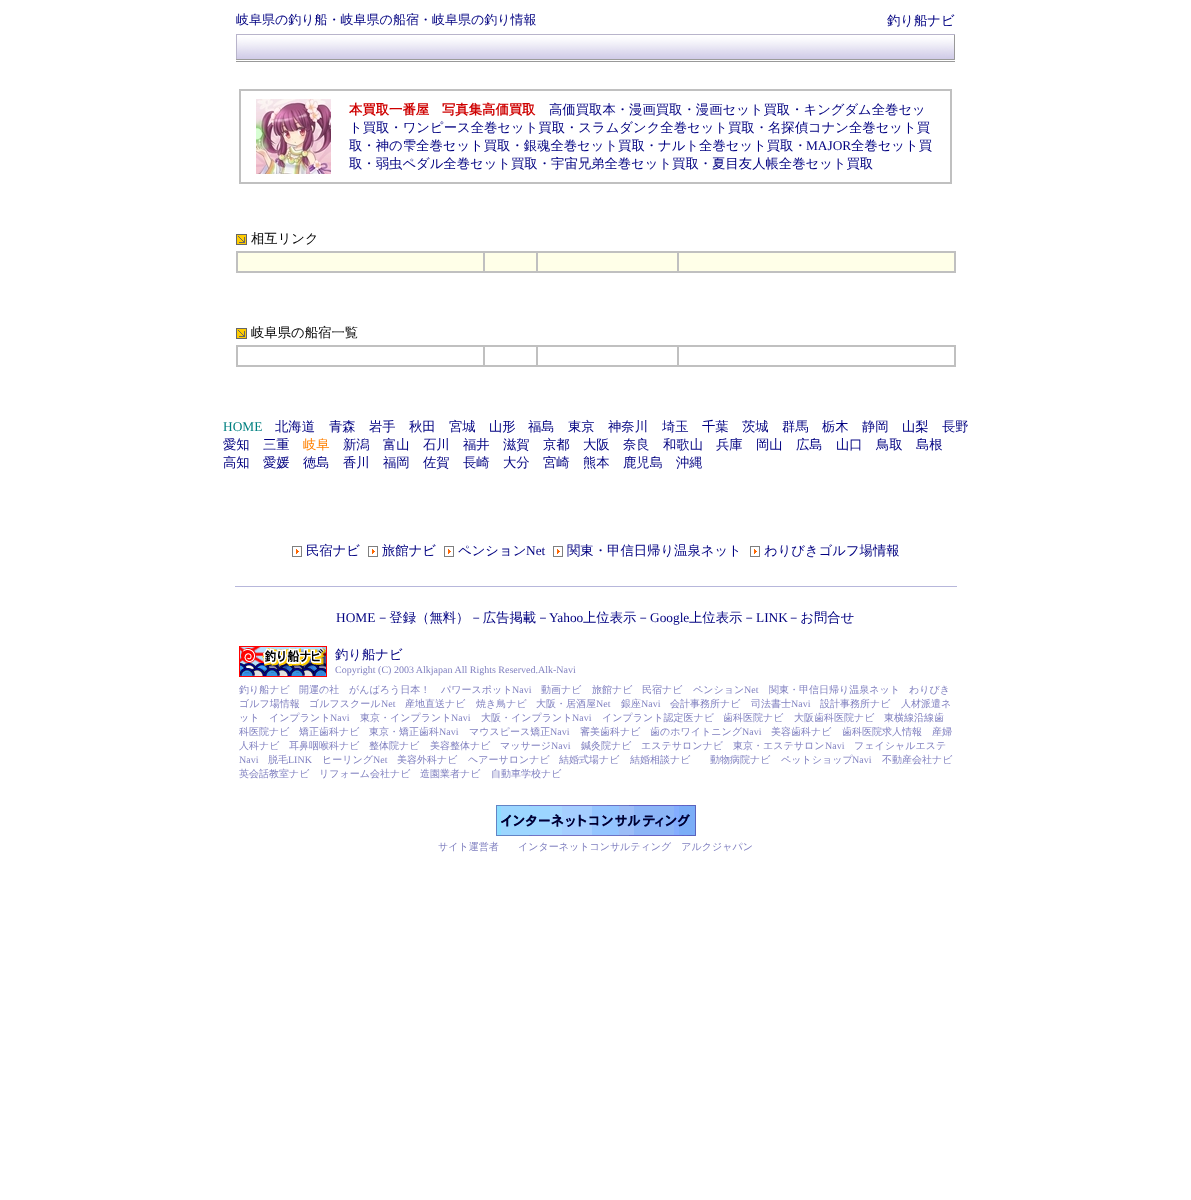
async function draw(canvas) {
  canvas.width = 1191;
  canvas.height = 1200;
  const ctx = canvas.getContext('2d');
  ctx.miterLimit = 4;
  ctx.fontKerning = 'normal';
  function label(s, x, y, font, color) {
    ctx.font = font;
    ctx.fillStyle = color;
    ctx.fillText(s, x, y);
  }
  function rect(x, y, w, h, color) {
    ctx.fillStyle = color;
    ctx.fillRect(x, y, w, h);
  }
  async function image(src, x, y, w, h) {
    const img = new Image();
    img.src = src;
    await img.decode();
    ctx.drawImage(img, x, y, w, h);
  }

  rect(0, 0, 1191, 1200, '#fff');
  label('岐阜県の釣り船・岐阜県の船宿・岐阜県の釣り情報', 236, 24, '500 13px WenQuanYi Zen Hei', '#000080');
  label('釣り船ナビ', 887, 25, '500 13.35px WenQuanYi Zen Hei', '#000080');
  await image('assets/img1.png', 236, 34, 11, 28);
  await image('assets/img2.png', 247, 34, 697, 28);
  await image('assets/img3.png', 944, 34, 11, 28);
  rect(239, 89, 713, 95, '#c0c0c0');
  rect(241, 91, 709, 91, '#fff');
  await image('assets/img4.png', 256, 99, 75, 75);
  label('本買取一番屋', 349, 114, 'bold 13.35px WenQuanYi Zen Hei', '#ce0000');
  label('写真集高価買取', 442, 114, 'bold 13.35px WenQuanYi Zen Hei', '#ce0000');
  label('高価買取本・漫画買取・漫画セット買取・キングダム全巻セッ', 549, 114, '500 13.35px WenQuanYi Zen Hei', '#000080');
  label('ト買取・ワンピース全巻セット買取・スラムダンク全巻セット買取・名探偵コナン全巻セット買', 349, 132, '500 13.35px WenQuanYi Zen Hei', '#000080');
  label('取・神の雫全巻セット買取・銀魂全巻セット買取・ナルト全巻セット買取・', 349, 150, '500 13.35px WenQuanYi Zen Hei', '#000080');
  label('MAJOR', 806, 150, '13.35px Liberation Serif', '#000080');
  label('全巻セット買', 851, 150, '500 13.35px WenQuanYi Zen Hei', '#000080');
  label('取・弱虫ペダル全巻セット買取・宇宙兄弟全巻セット買取・夏目友人帳全巻セット買取', 349, 168, '500 13.35px WenQuanYi Zen Hei', '#000080');
  await image('assets/img5.png', 236, 234, 11, 11);
  label('相互リンク', 251, 243, '500 13.35px WenQuanYi Zen Hei', '#000');
  rect(236, 251, 720, 22, '#c0c0c0');
  rect(238, 253, 245, 18, '#ffffe8');
  rect(485, 253, 51, 18, '#ffffe8');
  rect(538, 253, 139, 18, '#ffffe8');
  rect(679, 253, 275, 18, '#ffffe8');
  await image('assets/img5.png', 236, 328, 11, 11);
  label('岐阜県の船宿一覧', 251, 337, '500 13.35px WenQuanYi Zen Hei', '#000');
  rect(236, 345, 720, 22, '#c0c0c0');
  rect(238, 347, 245, 18, '#fff');
  rect(485, 347, 51, 18, '#fff');
  rect(538, 347, 139, 18, '#fff');
  rect(679, 347, 275, 18, '#fff');
  label('HOME', 223, 431, '13.35px Liberation Serif', '#008080');
  label('北海道', 275, 431, '500 13.35px WenQuanYi Zen Hei', '#000080');
  label('青森', 329, 431, '500 13.35px WenQuanYi Zen Hei', '#000080');
  label('岩手', 369, 431, '500 13.35px WenQuanYi Zen Hei', '#000080');
  label('秋田', 409, 431, '500 13.35px WenQuanYi Zen Hei', '#000080');
  label('宮城', 449, 431, '500 13.35px WenQuanYi Zen Hei', '#000080');
  label('山形', 489, 431, '500 13.35px WenQuanYi Zen Hei', '#000080');
  label('福島', 528, 431, '500 13.35px WenQuanYi Zen Hei', '#000080');
  label('東京', 568, 431, '500 13.35px WenQuanYi Zen Hei', '#000080');
  label('神奈川', 608, 431, '500 13.35px WenQuanYi Zen Hei', '#000080');
  label('埼玉', 662, 431, '500 13.35px WenQuanYi Zen Hei', '#000080');
  label('千葉', 702, 431, '500 13.35px WenQuanYi Zen Hei', '#000080');
  label('茨城', 742, 431, '500 13.35px WenQuanYi Zen Hei', '#000080');
  label('群馬', 782, 431, '500 13.35px WenQuanYi Zen Hei', '#000080');
  label('栃木', 822, 431, '500 13.35px WenQuanYi Zen Hei', '#000080');
  label('静岡', 862, 431, '500 13.35px WenQuanYi Zen Hei', '#000080');
  label('山梨', 902, 431, '500 13.35px WenQuanYi Zen Hei', '#000080');
  label('長野', 942, 431, '500 13.35px WenQuanYi Zen Hei', '#000080');
  label('愛知', 223, 449, '500 13.35px WenQuanYi Zen Hei', '#000080');
  label('三重', 263, 449, '500 13.35px WenQuanYi Zen Hei', '#000080');
  label('岐阜', 303, 449, '500 13.35px WenQuanYi Zen Hei', '#ff8000');
  label('新潟', 343, 449, '500 13.35px WenQuanYi Zen Hei', '#000080');
  label('富山', 383, 449, '500 13.35px WenQuanYi Zen Hei', '#000080');
  label('石川', 423, 449, '500 13.35px WenQuanYi Zen Hei', '#000080');
  label('福井', 463, 449, '500 13.35px WenQuanYi Zen Hei', '#000080');
  label('滋賀', 503, 449, '500 13.35px WenQuanYi Zen Hei', '#000080');
  label('京都', 543, 449, '500 13.35px WenQuanYi Zen Hei', '#000080');
  label('大阪', 583, 449, '500 13.35px WenQuanYi Zen Hei', '#000080');
  label('奈良', 623, 449, '500 13.35px WenQuanYi Zen Hei', '#000080');
  label('和歌山', 663, 449, '500 13.35px WenQuanYi Zen Hei', '#000080');
  label('兵庫', 716, 449, '500 13.35px WenQuanYi Zen Hei', '#000080');
  label('岡山', 756, 449, '500 13.35px WenQuanYi Zen Hei', '#000080');
  label('広島', 796, 449, '500 13.35px WenQuanYi Zen Hei', '#000080');
  label('山口', 836, 449, '500 13.35px WenQuanYi Zen Hei', '#000080');
  label('鳥取', 876, 449, '500 13.35px WenQuanYi Zen Hei', '#000080');
  label('島根', 916, 449, '500 13.35px WenQuanYi Zen Hei', '#000080');
  label('高知', 223, 467, '500 13.35px WenQuanYi Zen Hei', '#000080');
  label('愛媛', 263, 467, '500 13.35px WenQuanYi Zen Hei', '#000080');
  label('徳島', 303, 467, '500 13.35px WenQuanYi Zen Hei', '#000080');
  label('香川', 343, 467, '500 13.35px WenQuanYi Zen Hei', '#000080');
  label('福岡', 383, 467, '500 13.35px WenQuanYi Zen Hei', '#000080');
  label('佐賀', 423, 467, '500 13.35px WenQuanYi Zen Hei', '#000080');
  label('長崎', 463, 467, '500 13.35px WenQuanYi Zen Hei', '#000080');
  label('大分', 503, 467, '500 13.35px WenQuanYi Zen Hei', '#000080');
  label('宮崎', 543, 467, '500 13.35px WenQuanYi Zen Hei', '#000080');
  label('熊本', 583, 467, '500 13.35px WenQuanYi Zen Hei', '#000080');
  label('鹿児島', 623, 467, '500 13.35px WenQuanYi Zen Hei', '#000080');
  label('沖縄', 676, 467, '500 13.35px WenQuanYi Zen Hei', '#000080');
  await image('assets/img6.png', 292, 546, 10, 11);
  label('民宿ナビ', 306, 555, '500 13.35px WenQuanYi Zen Hei', '#000080');
  await image('assets/img6.png', 368, 546, 10, 11);
  label('旅館ナビ', 382, 555, '500 13.35px WenQuanYi Zen Hei', '#000080');
  await image('assets/img6.png', 444, 546, 10, 11);
  label('ペンション', 458, 555, '500 13.35px WenQuanYi Zen Hei', '#000080');
  label('Net', 526, 555, '13.35px Liberation Serif', '#000080');
  await image('assets/img6.png', 553, 546, 10, 11);
  label('関東・甲信日帰り温泉ネット', 567, 555, '500 13.35px WenQuanYi Zen Hei', '#000080');
  await image('assets/img6.png', 750, 546, 10, 11);
  label('わりびきゴルフ場情報', 764, 555, '500 13.35px WenQuanYi Zen Hei', '#000080');
  rect(235, 586, 722, 1, '#b7b7db');
  label('HOME', 336, 622, '13.35px Liberation Serif', '#000080');
  label('－登録（無料）－広告掲載－', 376, 622, '500 13.35px WenQuanYi Zen Hei', '#000080');
  label('Yahoo', 549, 622, '13.35px Liberation Serif', '#000080');
  label('上位表示－', 583, 622, '500 13.35px WenQuanYi Zen Hei', '#000080');
  label('Google', 650, 622, '13.35px Liberation Serif', '#000080');
  label('上位表示－', 689, 622, '500 13.35px WenQuanYi Zen Hei', '#000080');
  label('LINK', 756, 622, '13.35px Liberation Serif', '#000080');
  label('－お問合せ', 787, 622, '500 13.35px WenQuanYi Zen Hei', '#000080');
  await image('assets/img7.png', 239, 646, 88, 31);
  label('釣り船ナビ', 335, 659, '500 13.35px WenQuanYi Zen Hei', '#000080');
  label('Copyright (C) 2003 Alkjapan All Rights Reserved.Alk-Navi', 335, 673, '10px Liberation Serif', '#8080c0');
  label('釣り船ナビ', 239, 693, '500 10px WenQuanYi Zen Hei', '#8080c0');
  label('開運の社', 299, 693, '500 10px WenQuanYi Zen Hei', '#8080c0');
  label('がんばろう日本！', 349, 693, '500 10px WenQuanYi Zen Hei', '#8080c0');
  label('パワースポット', 441, 693, '500 10px WenQuanYi Zen Hei', '#8080c0');
  label('Navi', 512, 693, '10px Liberation Serif', '#8080c0');
  label('動画ナビ', 541, 693, '500 10px WenQuanYi Zen Hei', '#8080c0');
  label('旅館ナビ', 592, 693, '500 10px WenQuanYi Zen Hei', '#8080c0');
  label('民宿ナビ', 642, 693, '500 10px WenQuanYi Zen Hei', '#8080c0');
  label('ペンション', 693, 693, '500 10px WenQuanYi Zen Hei', '#8080c0');
  label('Net', 744, 693, '10px Liberation Serif', '#8080c0');
  label('関東・甲信日帰り温泉ネット', 769, 693, '500 10px WenQuanYi Zen Hei', '#8080c0');
  label('わりびき', 909, 693, '500 10px WenQuanYi Zen Hei', '#8080c0');
  label('ゴルフ場情報', 239, 707, '500 10px WenQuanYi Zen Hei', '#8080c0');
  label('ゴルフスクール', 309, 707, '500 10px WenQuanYi Zen Hei', '#8080c0');
  label('Net', 381, 707, '10px Liberation Serif', '#8080c0');
  label('産地直送ナビ', 405, 707, '500 10px WenQuanYi Zen Hei', '#8080c0');
  label('焼き鳥ナビ', 476, 707, '500 10px WenQuanYi Zen Hei', '#8080c0');
  label('大阪・居酒屋', 536, 707, '500 10px WenQuanYi Zen Hei', '#8080c0');
  label('Net', 596, 707, '10px Liberation Serif', '#8080c0');
  label('銀座', 621, 707, '500 10px WenQuanYi Zen Hei', '#8080c0');
  label('Navi', 641, 707, '10px Liberation Serif', '#8080c0');
  label('会計事務所ナビ', 670, 707, '500 10px WenQuanYi Zen Hei', '#8080c0');
  label('司法書士', 751, 707, '500 10px WenQuanYi Zen Hei', '#8080c0');
  label('Navi', 791, 707, '10px Liberation Serif', '#8080c0');
  label('設計事務所ナビ', 820, 707, '500 10px WenQuanYi Zen Hei', '#8080c0');
  label('人材派遣ネ', 901, 707, '500 10px WenQuanYi Zen Hei', '#8080c0');
  label('ット', 239, 721, '500 10px WenQuanYi Zen Hei', '#8080c0');
  label('インプラント', 269, 721, '500 10px WenQuanYi Zen Hei', '#8080c0');
  label('Navi', 330, 721, '10px Liberation Serif', '#8080c0');
  label('東京・インプラント', 360, 721, '500 10px WenQuanYi Zen Hei', '#8080c0');
  label('Navi', 451, 721, '10px Liberation Serif', '#8080c0');
  label('大阪・インプラント', 481, 721, '500 10px WenQuanYi Zen Hei', '#8080c0');
  label('Navi', 572, 721, '10px Liberation Serif', '#8080c0');
  label('インプラント認定医ナビ', 602, 721, '500 10px WenQuanYi Zen Hei', '#8080c0');
  label('歯科医院ナビ', 723, 721, '500 10px WenQuanYi Zen Hei', '#8080c0');
  label('大阪歯科医院ナビ', 794, 721, '500 10px WenQuanYi Zen Hei', '#8080c0');
  label('東横線沿線歯', 884, 721, '500 10px WenQuanYi Zen Hei', '#8080c0');
  label('科医院ナビ', 239, 735, '500 10px WenQuanYi Zen Hei', '#8080c0');
  label('矯正歯科ナビ', 299, 735, '500 10px WenQuanYi Zen Hei', '#8080c0');
  label('東京・矯正歯科', 369, 735, '500 10px WenQuanYi Zen Hei', '#8080c0');
  label('Navi', 439, 735, '10px Liberation Serif', '#8080c0');
  label('マウスピース矯正', 469, 735, '500 10px WenQuanYi Zen Hei', '#8080c0');
  label('Navi', 550, 735, '10px Liberation Serif', '#8080c0');
  label('審美歯科ナビ', 580, 735, '500 10px WenQuanYi Zen Hei', '#8080c0');
  label('歯のホワイトニング', 650, 735, '500 10px WenQuanYi Zen Hei', '#8080c0');
  label('Navi', 742, 735, '10px Liberation Serif', '#8080c0');
  label('美容歯科ナビ', 771, 735, '500 10px WenQuanYi Zen Hei', '#8080c0');
  label('歯科医院求人情報', 842, 735, '500 10px WenQuanYi Zen Hei', '#8080c0');
  label('産婦', 932, 735, '500 10px WenQuanYi Zen Hei', '#8080c0');
  label('人科ナビ', 239, 749, '500 10px WenQuanYi Zen Hei', '#8080c0');
  label('耳鼻咽喉科ナビ', 289, 749, '500 10px WenQuanYi Zen Hei', '#8080c0');
  label('整体院ナビ', 369, 749, '500 10px WenQuanYi Zen Hei', '#8080c0');
  label('美容整体ナビ', 430, 749, '500 10px WenQuanYi Zen Hei', '#8080c0');
  label('マッサージ', 500, 749, '500 10px WenQuanYi Zen Hei', '#8080c0');
  label('Navi', 551, 749, '10px Liberation Serif', '#8080c0');
  label('鍼灸院ナビ', 581, 749, '500 10px WenQuanYi Zen Hei', '#8080c0');
  label('エステサロンナビ', 641, 749, '500 10px WenQuanYi Zen Hei', '#8080c0');
  label('東京・エステサロン', 733, 749, '500 10px WenQuanYi Zen Hei', '#8080c0');
  label('Navi', 825, 749, '10px Liberation Serif', '#8080c0');
  label('フェイシャルエステ', 854, 749, '500 10px WenQuanYi Zen Hei', '#8080c0');
  label('Navi', 239, 763, '10px Liberation Serif', '#8080c0');
  label('脱毛', 268, 763, '500 10px WenQuanYi Zen Hei', '#8080c0');
  label('LINK', 288, 763, '10px Liberation Serif', '#8080c0');
  label('ヒーリング', 322, 763, '500 10px WenQuanYi Zen Hei', '#8080c0');
  label('Net', 373, 763, '10px Liberation Serif', '#8080c0');
  label('美容外科ナビ', 397, 763, '500 10px WenQuanYi Zen Hei', '#8080c0');
  label('ヘアーサロンナビ', 468, 763, '500 10px WenQuanYi Zen Hei', '#8080c0');
  label('結婚式場ナビ', 559, 763, '500 10px WenQuanYi Zen Hei', '#8080c0');
  label('結婚相談ナビ', 630, 763, '500 10px WenQuanYi Zen Hei', '#8080c0');
  label('動物病院ナビ', 710, 763, '500 10px WenQuanYi Zen Hei', '#8080c0');
  label('ペットショップ', 781, 763, '500 10px WenQuanYi Zen Hei', '#8080c0');
  label('Navi', 852, 763, '10px Liberation Serif', '#8080c0');
  label('不動産会社ナビ', 882, 763, '500 10px WenQuanYi Zen Hei', '#8080c0');
  label('英会話教室ナビ', 239, 777, '500 10px WenQuanYi Zen Hei', '#8080c0');
  label('リフォーム会社ナビ', 319, 777, '500 10px WenQuanYi Zen Hei', '#8080c0');
  label('造園業者ナビ', 420, 777, '500 10px WenQuanYi Zen Hei', '#8080c0');
  label('自動車学校ナビ', 491, 777, '500 10px WenQuanYi Zen Hei', '#8080c0');
  await image('assets/img8.png', 496, 805, 200, 31);
  label('サイト運営者', 438, 850, '500 10px WenQuanYi Zen Hei', '#8080c0');
  label('インターネットコンサルティング　アルクジャパン', 518, 850, '500 10px WenQuanYi Zen Hei', '#8080c0');
}

draw(document.querySelector('canvas'));
